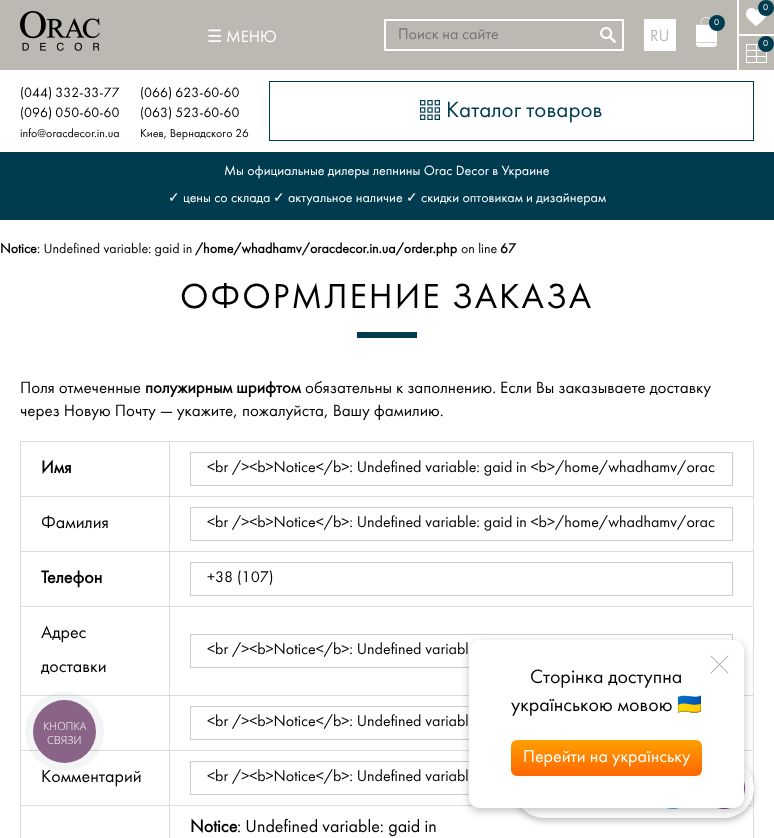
async function draw(canvas) {
  canvas.width = 774;
  canvas.height = 838;
  const ctx = canvas.getContext('2d');
  ctx.miterLimit = 4;
  ctx.fontKerning = 'normal';
  function label(s, x, y, font, color) {
    ctx.font = font;
    ctx.fillStyle = color;
    ctx.fillText(s, x, y);
  }
  function rect(x, y, w, h, color) {
    ctx.fillStyle = color;
    ctx.fillRect(x, y, w, h);
  }
  function roundedRect(x, y, w, h, r, color) {
    ctx.fillStyle = color;
    ctx.beginPath();
    ctx.roundRect(x, y, w, h, r);
    ctx.fill();
  }
  async function image(src, x, y, w, h) {
    const img = new Image();
    img.src = src;
    await img.decode();
    ctx.drawImage(img, x, y, w, h);
  }
  let gradient, path;

  rect(0, 0, 774, 838, '#fff');
  rect(0, 0, 774, 70, '#bcb8b2');
  await image('assets/img1.png', 20, 11, 80, 40);
  await image('assets/img2.png', 696, 17, 21, 30);
  ctx.fillStyle = '#003c50';
  ctx.beginPath();
  ctx.arc(717, 23, 8, 0, 2 * Math.PI);
  ctx.fill();
  label('0', 714, 25, '9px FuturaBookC', '#fff');
  rect(737, 0, 2, 70, '#fff');
  await image('assets/img3.png', 746, 8, 21, 18);
  ctx.fillStyle = '#003c50';
  ctx.beginPath();
  ctx.arc(766, 8, 8, 0, 2 * Math.PI);
  ctx.fill();
  label('0', 763, 10, '9px FuturaBookC', '#fff');
  rect(739, 34, 35, 2, '#fff');
  await image('assets/img4.png', 746, 44, 21, 19);
  ctx.fillStyle = '#003c50';
  ctx.beginPath();
  ctx.arc(766, 44, 8, 0, 2 * Math.PI);
  ctx.fill();
  label('0', 763, 46, '9px FuturaBookC', '#fff');
  label('☰', 207, 42, '17px DejaVu Sans', '#fff');
  label('МЕНЮ', 226, 42, '17px FuturaBookC', '#fff');
  ctx.strokeStyle = '#fff';
  ctx.lineWidth = 2;
  ctx.strokeRect(385, 20, 238, 30);
  label('Поиск на сайте', 398, 39, '16px FuturaBookC', '#757575');
  await image('assets/img5.png', 600, 27, 16, 16);
  rect(644, 19, 32, 32, '#fff');
  label('RU', 650, 41, '17px FuturaBookC', '#bcb8b2');
  label('(044) 332-33-77', 20, 97, '14px FuturaBookC', '#000');
  label('(096) 050-60-60', 20, 117, '14px FuturaBookC', '#000');
  label('info@oracdecor.in.ua', 20, 137, '12px FuturaBookC', '#000');
  label('(066) 623-60-60', 140, 97, '14px FuturaBookC', '#000');
  label('(063) 523-60-60', 140, 117, '14px FuturaBookC', '#000');
  label('Киев, Вернадского 26', 140, 137, '12px FuturaBookC', '#000');
  ctx.strokeStyle = '#003c50';
  ctx.lineWidth = 1;
  ctx.strokeRect(269.5, 81.5, 484, 59);
  await image('assets/img6.png', 420, 100, 20, 20);
  label('Каталог товаров', 446, 117, '23px FuturaBookC', '#003c50');
  rect(0, 152, 774, 68, '#003c50');
  label('Мы официальные дилеры лепнины Orac Decor в Украине', 224, 175, '14px FuturaBookC', '#fff');
  label('✓', 168, 202, '14px DejaVu Sans', '#fff');
  label('цены со склада', 183, 202, '14px FuturaBookC', '#fff');
  label('✓', 273, 202, '14px DejaVu Sans', '#fff');
  label('актуальное наличие', 288, 202, '14px FuturaBookC', '#fff');
  label('✓', 406, 202, '14px DejaVu Sans', '#fff');
  label('скидки оптовикам и дизайнерам', 421, 202, '14px FuturaBookC', '#fff');
  label('Notice', 0, 253, 'bold 14px FuturaBookC', '#000');
  label(': Undefined variable: gaid in', 37, 253, '14px FuturaBookC', '#000');
  label('/home/whadhamv/oracdecor.in.ua/order.php', 195, 253, 'bold 14px FuturaBookC', '#000');
  label('on line', 461, 253, '14px FuturaBookC', '#000');
  label('67', 500, 253, 'bold 14px FuturaBookC', '#000');
  ctx.letterSpacing = '2px';
  label('ОФОРМЛЕНИЕ ЗАКАЗА', 180, 308, '36px FuturaBookC', '#000');
  rect(357, 332, 60, 6, '#003c50');
  ctx.letterSpacing = '0px';
  label('Поля отмеченные', 20, 393, '17px FuturaBookC', '#000');
  label('полужирным шрифтом', 145, 393, 'bold 17px FuturaBookC', '#000');
  label('обязательны к заполнению. Если Вы заказываете доставку', 305, 393, '17px FuturaBookC', '#000');
  label('через Новую Почту — укажите, пожалуйста, Вашу фамилию.', 20, 416, '17px FuturaBookC', '#000');
  rect(169, 441, 585, 1, '#dedcd8');
  rect(169, 496, 585, 1, '#dedcd8');
  rect(169, 551, 585, 1, '#dedcd8');
  rect(169, 606, 585, 1, '#dedcd8');
  rect(169, 695, 585, 1, '#dedcd8');
  rect(169, 750, 585, 1, '#dedcd8');
  rect(169, 805, 585, 1, '#dedcd8');
  rect(169, 805, 1, 33, '#dedcd8');
  rect(20, 805, 150, 1, '#dedcd8');
  rect(169, 750, 1, 56, '#dedcd8');
  rect(20, 750, 150, 1, '#dedcd8');
  rect(169, 695, 1, 56, '#dedcd8');
  rect(20, 695, 150, 1, '#dedcd8');
  rect(169, 606, 1, 90, '#dedcd8');
  rect(20, 606, 150, 1, '#dedcd8');
  rect(169, 551, 1, 56, '#dedcd8');
  rect(20, 551, 150, 1, '#dedcd8');
  rect(169, 496, 1, 56, '#dedcd8');
  rect(20, 496, 150, 1, '#dedcd8');
  rect(169, 441, 1, 56, '#dedcd8');
  rect(20, 441, 150, 1, '#dedcd8');
  rect(20, 805, 1, 33, '#dedcd8');
  rect(20, 750, 1, 56, '#dedcd8');
  rect(20, 695, 1, 56, '#dedcd8');
  rect(20, 606, 1, 90, '#dedcd8');
  rect(20, 551, 1, 56, '#dedcd8');
  rect(20, 496, 1, 56, '#dedcd8');
  rect(20, 441, 1, 56, '#dedcd8');
  label('Имя', 41, 473, 'bold 18px FuturaBookC', '#000');
  rect(753, 805, 1, 33, '#dedcd8');
  rect(753, 750, 1, 56, '#dedcd8');
  rect(753, 695, 1, 56, '#dedcd8');
  rect(753, 606, 1, 90, '#dedcd8');
  rect(753, 551, 1, 56, '#dedcd8');
  rect(753, 496, 1, 56, '#dedcd8');
  rect(753, 441, 1, 56, '#dedcd8');
  ctx.strokeStyle = '#ccc';
  ctx.strokeRect(190.5, 452.5, 542, 33);
  label('<br /><b>Notice<\/b>: Undefined variable: gaid in <b>/home/whadhamv/orac', 207, 472, '16px FuturaBookC', '#000');
  label('Фамилия', 41, 528, '18px FuturaBookC', '#000');
  ctx.strokeRect(190.5, 507.5, 542, 33);
  label('<br /><b>Notice<\/b>: Undefined variable: gaid in <b>/home/whadhamv/orac', 207, 527, '16px FuturaBookC', '#000');
  label('Телефон', 41, 583, 'bold 18px FuturaBookC', '#000');
  ctx.strokeRect(190.5, 562.5, 542, 33);
  label('+38 (107)', 207, 582, '16px FuturaBookC', '#000');
  label('Адрес', 41, 638, '18px FuturaBookC', '#000');
  label('доставки', 41, 672, '18px FuturaBookC', '#000');
  ctx.strokeRect(190.5, 634.5, 542, 33);
  label('<br /><b>Notice<\/b>: Undefined variabl', 207, 654, '16px FuturaBookC', '#000');
  ctx.strokeRect(190.5, 706.5, 542, 33);
  label('<br /><b>Notice<\/b>: Undefined variabl', 207, 726, '16px FuturaBookC', '#000');
  label('Комментарий', 41, 782, '18px FuturaBookC', '#000');
  ctx.strokeRect(190.5, 761.5, 542, 33);
  label('<br /><b>Notice<\/b>: Undefined variabl', 207, 781, '16px FuturaBookC', '#000');
  label('Notice', 190, 832, 'bold 18px FuturaBookC', '#000');
  label(': Undefined variable: gaid in', 237, 832, '18px FuturaBookC', '#000');
  ctx.fillStyle = '#2a405d0f';
  ctx.beginPath();
  ctx.arc(64.5, 731.5, 39.5, 0, 2 * Math.PI);
  ctx.fill();
  ctx.fillStyle = '#845e82f5';
  ctx.beginPath();
  ctx.arc(64.5, 731.5, 31.5, 0, 2 * Math.PI);
  ctx.fill();
  label('КНОПКА', 43, 730, '300 11px Open Sans', '#fff');
  label('СВЯЗИ', 47, 744, '300 11px Open Sans', '#fff');
  ctx.fillStyle = '#0000003d';
  ctx.filter = 'blur(3px)';
  ctx.beginPath();
  ctx.roundRect(514, 761, 240, 60, 30);
  ctx.fill();
  ctx.filter = 'none';
  roundedRect(514, 758, 240, 60, 30, '#fff');
  await image('assets/img7.png', 666, 808, 14, 1);
  await image('assets/img8.png', 717, 781, 28, 28);
  ctx.fillStyle = '#0000003d';
  ctx.filter = 'blur(4px)';
  ctx.beginPath();
  ctx.roundRect(469, 643, 275, 168, 10);
  ctx.fill();
  ctx.filter = 'none';
  roundedRect(469, 640, 275, 168, 10, '#fff');
  ctx.fillStyle = '#999';
  path = new Path2D('M728 655.5L728.5 656L711 673.5L710.5 673Z');
  ctx.fill(path);
  path = new Path2D('M711 655.5L728.5 673L728 673.5L710.5 656Z');
  ctx.fill(path);
  label('Сторінка доступна', 530, 683, '20px FuturaBookC', '#000');
  label('українською мовою', 511, 711, '20px FuturaBookC', '#000');
  label('🇺🇦', 677, 711, '20px Noto Color Emoji', '#000');
  gradient = ctx.createLinearGradient(607, 740, 607, 776);
  gradient.addColorStop(0, '#ff9f00');
  gradient.addColorStop(1, '#f60');
  ctx.fillStyle = gradient;
  ctx.beginPath();
  ctx.roundRect(511, 740, 191, 36, 6);
  ctx.fill();
  label('Перейти на українську', 523, 762, '18px FuturaBookC', '#fff');
}

draw(document.querySelector('canvas'));
